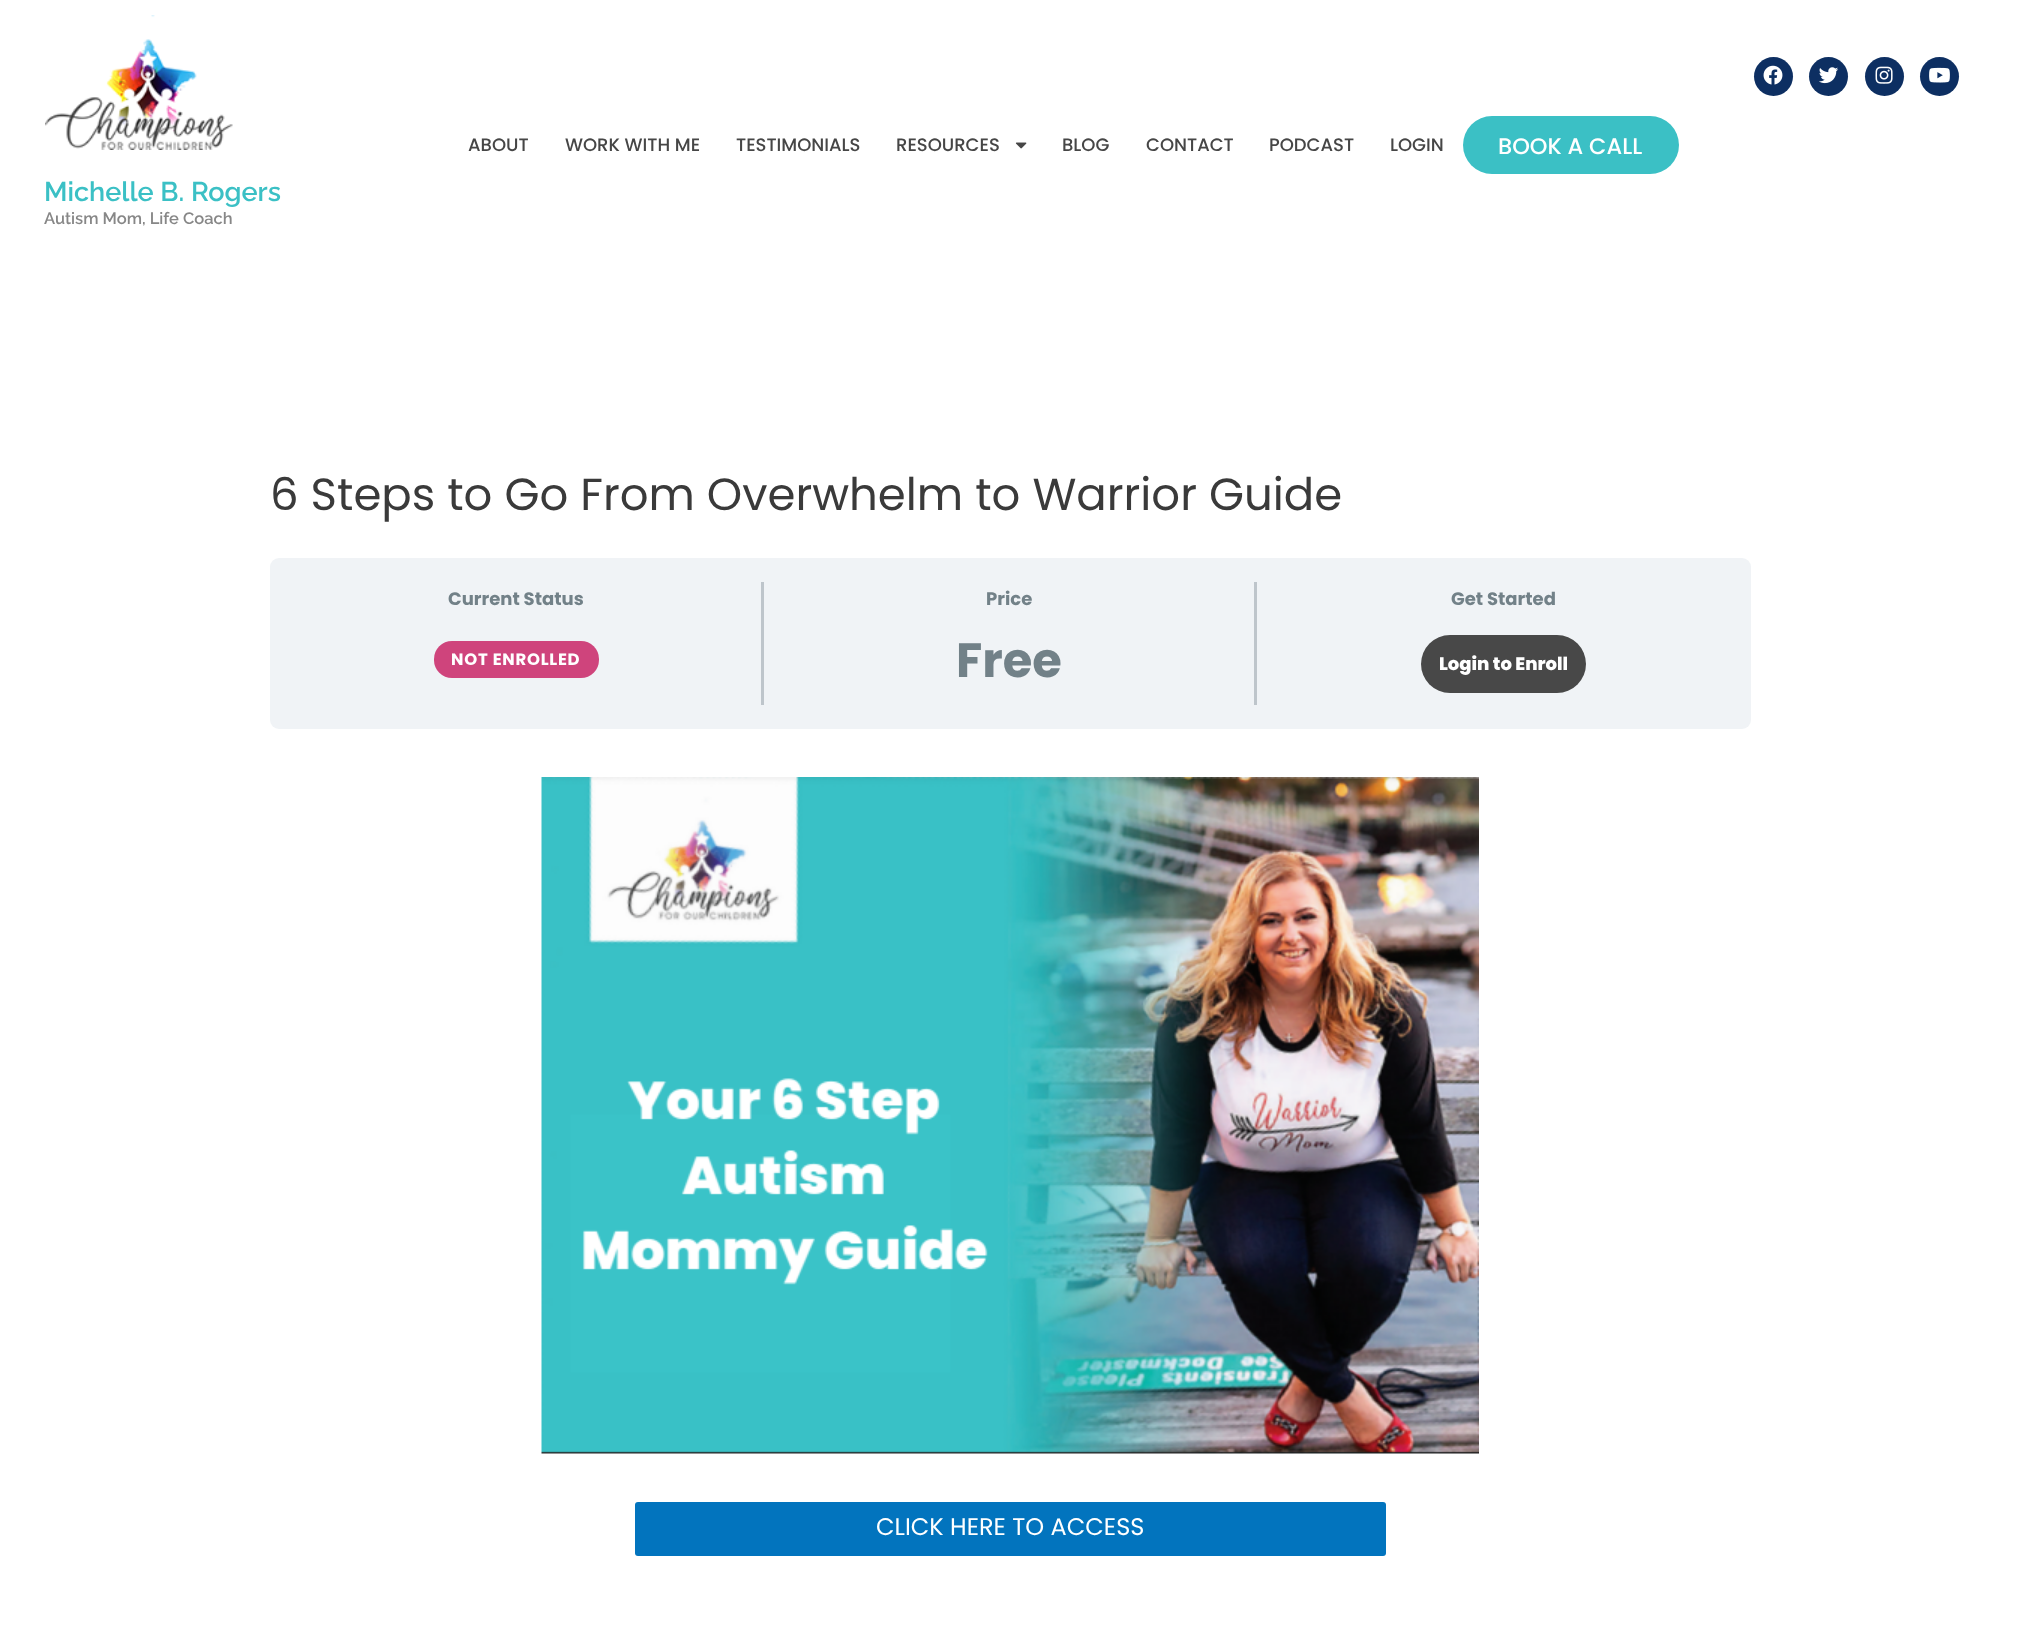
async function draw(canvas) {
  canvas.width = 2020;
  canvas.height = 1646;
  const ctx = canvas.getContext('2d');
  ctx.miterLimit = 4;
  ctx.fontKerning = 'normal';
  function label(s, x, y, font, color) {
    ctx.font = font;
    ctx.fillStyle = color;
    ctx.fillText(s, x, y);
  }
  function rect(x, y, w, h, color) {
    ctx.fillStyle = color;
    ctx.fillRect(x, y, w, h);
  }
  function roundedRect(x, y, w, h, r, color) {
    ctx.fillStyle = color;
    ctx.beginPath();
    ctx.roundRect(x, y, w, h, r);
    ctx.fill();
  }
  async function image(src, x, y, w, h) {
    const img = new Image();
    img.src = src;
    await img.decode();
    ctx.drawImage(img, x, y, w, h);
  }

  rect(0, 0, 2020, 1646, '#fff');
  ctx.fillStyle = '#0d2f62';
  ctx.beginPath();
  ctx.arc(1773.5, 76.5, 19.5, 0, 2 * Math.PI);
  ctx.fill();
  await image('assets/img1.png', 1763, 65, 20, 20);
  ctx.beginPath();
  ctx.arc(1828.5, 76.5, 19.5, 0, 2 * Math.PI);
  ctx.fill();
  await image('assets/img2.png', 1819, 67, 20, 17);
  ctx.beginPath();
  ctx.arc(1884.5, 76.5, 19.5, 0, 2 * Math.PI);
  ctx.fill();
  await image('assets/img3.png', 1875, 66, 18, 18);
  ctx.beginPath();
  ctx.arc(1939.5, 76.5, 19.5, 0, 2 * Math.PI);
  ctx.fill();
  await image('assets/img4.png', 1929, 67, 21, 16);
  label('ABOUT', 468, 151, '500 18px Poppins', '#464646');
  label('WORK WITH ME', 565, 151, '500 18px Poppins', '#464646');
  label('TESTIMONIALS', 736, 151, '500 18px Poppins', '#464646');
  label('RESOURCES', 896, 151, '500 18px Poppins', '#464646');
  await image('assets/img5.png', 1015, 142, 12, 7);
  label('BLOG', 1062, 151, '500 18px Poppins', '#464646');
  label('CONTACT', 1146, 151, '500 18px Poppins', '#464646');
  label('PODCAST', 1269, 151, '500 18px Poppins', '#464646');
  label('LOGIN', 1390, 151, '500 18px Poppins', '#464646');
  roundedRect(1463, 116, 216, 58, 29, '#3bc0c5');
  label('BOOK A CALL', 1498, 154, '500 22.5px Poppins', '#fff');
  await image('assets/img6.png', 45, 15, 188, 135);
  label('Michelle B. Rogers', 44, 201, '600 27px Raleway', '#3bc0c5');
  label('Autism Mom, Life Coach', 44, 224, '600 16.5px Raleway', '#878787');
  label('6 Steps to Go From Overwhelm to Warrior Guide', 270, 510, '45px Poppins', '#3a3a3a');
  roundedRect(270, 558, 1481, 171, 9, '#f0f3f6');
  rect(761, 582, 3, 123, '#bec5cb');
  label('Current Status', 448, 605, 'bold 18px Poppins', '#728188');
  roundedRect(434, 641, 165, 37, 18, '#cf447c');
  ctx.letterSpacing = '0.75px';
  label('NOT ENROLLED', 451, 665, 'bold 16.5px Poppins', '#fff');
  rect(1254, 582, 3, 123, '#bec5cb');
  ctx.letterSpacing = '0px';
  label('Price', 986, 605, 'bold 18px Poppins', '#728188');
  label('Free', 956, 677, 'bold 48px Poppins', '#728188');
  label('Get Started', 1451, 605, 'bold 18px Poppins', '#728188');
  roundedRect(1421, 635, 165, 58, 29, '#484848');
  label('Login to Enroll', 1439, 670, '800 18px Poppins', '#fff');
  await image('assets/img7.png', 541, 777, 938, 677);
  roundedRect(635, 1502, 751, 54, 3, '#0274be');
  label('CLICK HERE TO ACCESS', 876, 1535, '24px Poppins', '#fff');
}

draw(document.querySelector('canvas'));
